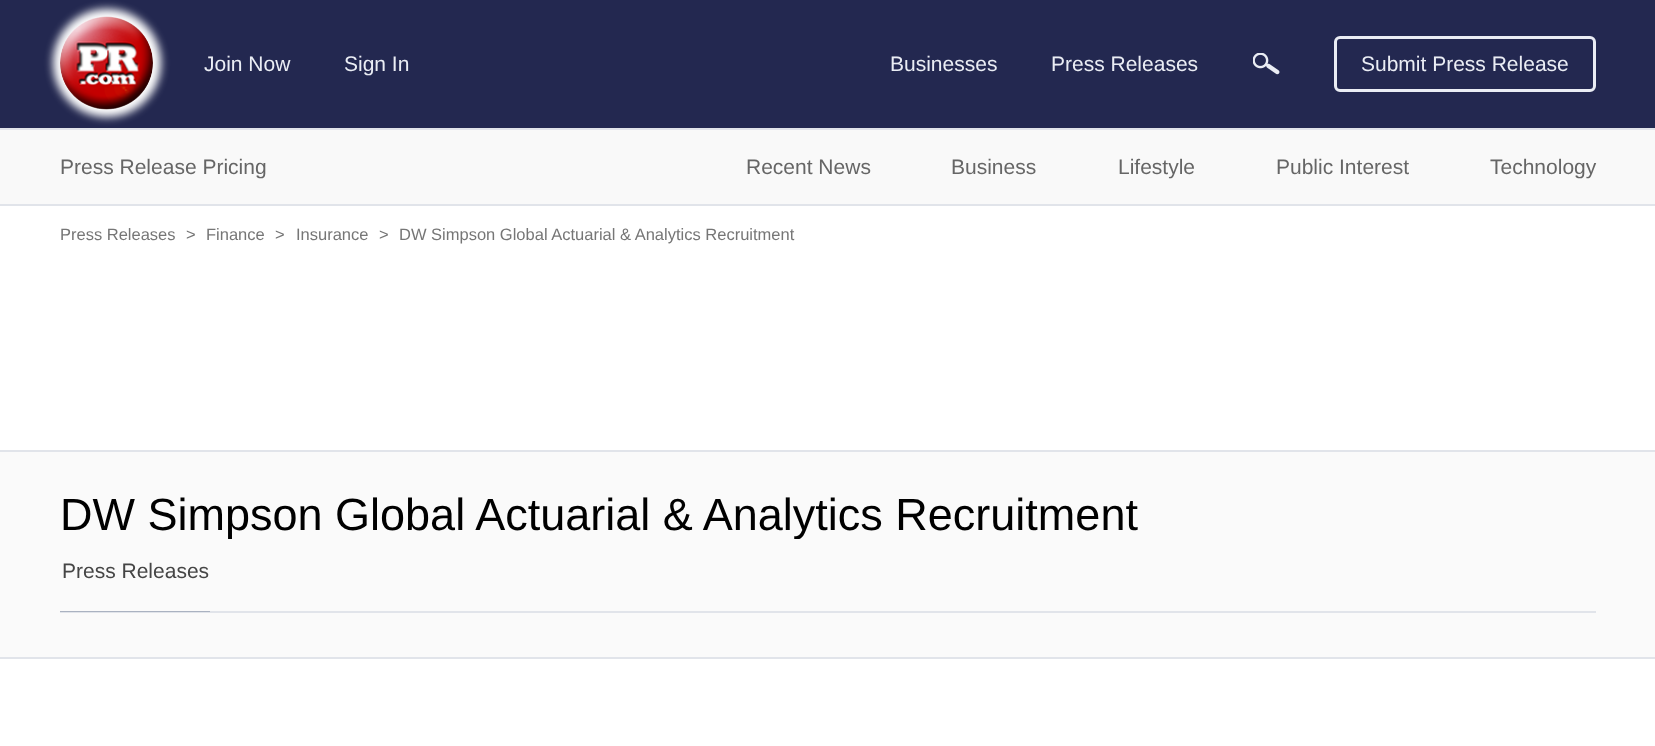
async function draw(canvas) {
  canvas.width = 1655;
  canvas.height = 746;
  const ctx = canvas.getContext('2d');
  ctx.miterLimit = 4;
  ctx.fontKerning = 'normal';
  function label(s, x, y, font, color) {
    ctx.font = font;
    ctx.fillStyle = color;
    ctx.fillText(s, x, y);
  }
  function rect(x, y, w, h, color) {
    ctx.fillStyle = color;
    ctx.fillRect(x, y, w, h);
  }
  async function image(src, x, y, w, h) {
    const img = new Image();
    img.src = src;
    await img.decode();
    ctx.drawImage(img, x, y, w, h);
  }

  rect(0, 0, 1655, 746, '#fff');
  rect(0, 0, 1655, 128, '#232850');
  rect(0, 130, 1655, 74, '#f9f9f9');
  rect(0, 128, 1655, 2, '#e1e4ea');
  ctx.fillStyle = '#fff';
  ctx.filter = 'blur(4.5px)';
  ctx.beginPath();
  ctx.roundRect(53, 9, 108, 108, 54);
  ctx.fill();
  ctx.filter = 'none';
  ctx.beginPath();
  ctx.arc(106.5, 63.5, 46.5, 0, 2 * Math.PI);
  ctx.fill();
  await image('assets/img1.png', 60, 16, 93, 94);
  label('Join Now', 204, 71, '21px Liberation Sans', '#eaedf4');
  label('Sign In', 344, 71, '21px Liberation Sans', '#eaedf4');
  label('Businesses', 890, 71, '21px Liberation Sans', '#eaedf4');
  label('Press Releases', 1051, 71, '21px Liberation Sans', '#eaedf4');
  await image('assets/img2.png', 1253, 53, 27, 22);
  ctx.beginPath();
  ctx.roundRect(1335.5, 37.5, 259, 53, 4.5);
  ctx.strokeStyle = '#eaedf4';
  ctx.lineWidth = 3;
  ctx.stroke();
  label('Submit Press Release', 1361, 71, '21px Liberation Sans', '#eaedf4');
  rect(0, 204, 1655, 2, '#e1e4ea');
  label('Press Release Pricing', 60, 174, '21px Liberation Sans', '#666');
  label('Recent News', 746, 174, '21px Liberation Sans', '#666');
  label('Business', 951, 174, '21px Liberation Sans', '#666');
  label('Lifestyle', 1118, 174, '21px Liberation Sans', '#666');
  label('Public Interest', 1276, 174, '21px Liberation Sans', '#666');
  label('Technology', 1490, 174, '21px Liberation Sans', '#666');
  label('Press Releases', 60, 240, '16.5px Liberation Sans', '#767676');
  label('>', 186, 240, '16.5px Liberation Sans', '#767676');
  label('Finance', 206, 240, '16.5px Liberation Sans', '#767676');
  label('>', 275, 240, '16.5px Liberation Sans', '#767676');
  label('Insurance', 296, 240, '16.5px Liberation Sans', '#767676');
  label('>', 379, 240, '16.5px Liberation Sans', '#767676');
  label('DW Simpson Global Actuarial & Analytics Recruitment', 399, 240, '16.5px Liberation Sans', '#767676');
  rect(0, 452, 1655, 205, '#fafafa');
  rect(0, 450, 1655, 2, '#e1e4ea');
  rect(0, 657, 1655, 2, '#e1e4ea');
  ctx.save();
  ctx.beginPath();
  ctx.rect(60, 492, 1536, 47);
  ctx.clip();
  label('DW Simpson Global Actuarial & Analytics Recruitment', 60, 530, '45px Liberation Sans', '#000');
  ctx.restore();
  rect(60, 611, 1536, 2, '#e1e4ea');
  rect(60, 611, 150, 1, '#aab2c1');
  label('Press Releases', 62, 578, '21px Liberation Sans', '#454545');
}

draw(document.querySelector('canvas'));
